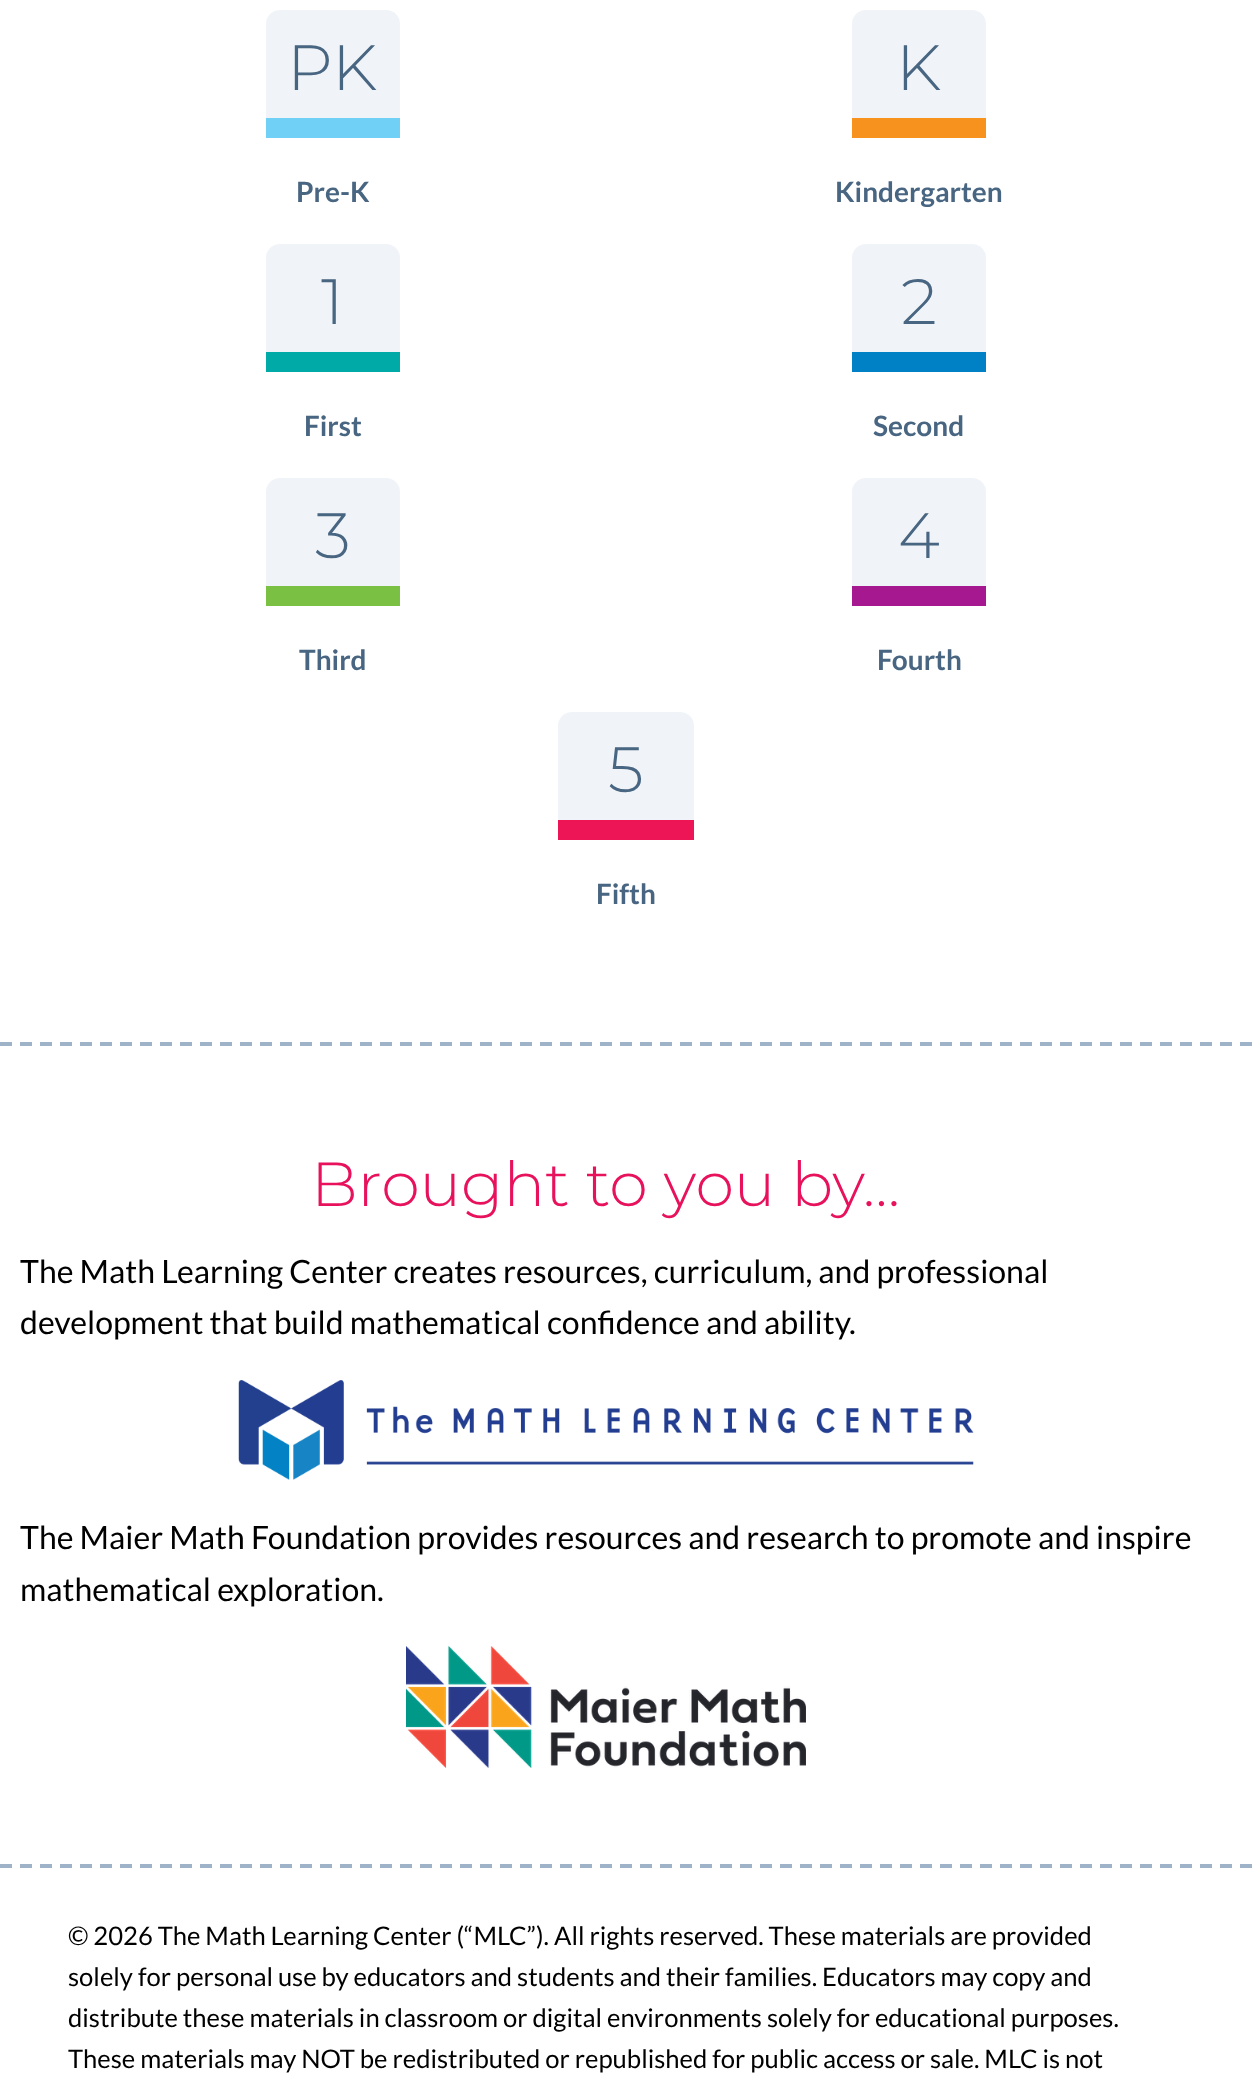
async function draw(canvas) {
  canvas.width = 1252;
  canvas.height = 2091;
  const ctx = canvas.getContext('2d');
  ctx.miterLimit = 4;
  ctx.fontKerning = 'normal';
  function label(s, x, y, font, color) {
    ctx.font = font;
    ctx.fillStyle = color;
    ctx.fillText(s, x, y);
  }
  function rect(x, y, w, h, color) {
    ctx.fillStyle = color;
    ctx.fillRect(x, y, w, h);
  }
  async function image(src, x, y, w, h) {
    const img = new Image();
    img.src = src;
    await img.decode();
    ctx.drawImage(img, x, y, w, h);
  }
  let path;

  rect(0, 0, 1252, 2091, '#fff');
  path = new Path2D('M0 1044H1252');
  ctx.strokeStyle = '#9fb3c8';
  ctx.lineWidth = 4;
  ctx.setLineDash([12, 8]);
  ctx.stroke(path);
  ctx.fillStyle = '#f0f4f8';
  ctx.beginPath();
  ctx.roundRect(266, 10, 134, 128, [14, 14, 0, 0]);
  ctx.fill();
  rect(266, 118, 134, 20, '#71d0f6');
  label('PK', 287, 90, '300 64px Montserrat', '#486581');
  label('Pre-K', 296, 202, 'bold 28px Lato', '#486581');
  ctx.fillStyle = '#f0f4f8';
  ctx.beginPath();
  ctx.roundRect(852, 10, 134, 128, [14, 14, 0, 0]);
  ctx.fill();
  rect(852, 118, 134, 20, '#f7921e');
  label('K', 896, 90, '300 64px Montserrat', '#486581');
  label('Kindergarten', 835, 202, 'bold 28px Lato', '#486581');
  ctx.fillStyle = '#f0f4f8';
  ctx.beginPath();
  ctx.roundRect(266, 244, 134, 128, [14, 14, 0, 0]);
  ctx.fill();
  rect(266, 352, 134, 20, '#00aaa6');
  label('1', 321, 324, '300 64px Montserrat', '#486581');
  label('First', 304, 436, 'bold 28px Lato', '#486581');
  ctx.fillStyle = '#f0f4f8';
  ctx.beginPath();
  ctx.roundRect(852, 244, 134, 128, [14, 14, 0, 0]);
  ctx.fill();
  rect(852, 352, 134, 20, '#0081c6');
  label('2', 901, 324, '300 64px Montserrat', '#486581');
  label('Second', 873, 436, 'bold 28px Lato', '#486581');
  ctx.fillStyle = '#f0f4f8';
  ctx.beginPath();
  ctx.roundRect(266, 478, 134, 128, [14, 14, 0, 0]);
  ctx.fill();
  rect(266, 586, 134, 20, '#7ac143');
  label('3', 315, 558, '300 64px Montserrat', '#486581');
  label('Third', 299, 670, 'bold 28px Lato', '#486581');
  ctx.fillStyle = '#f0f4f8';
  ctx.beginPath();
  ctx.roundRect(852, 478, 134, 128, [14, 14, 0, 0]);
  ctx.fill();
  rect(852, 586, 134, 20, '#a51890');
  label('4', 898, 558, '300 64px Montserrat', '#486581');
  label('Fourth', 877, 670, 'bold 28px Lato', '#486581');
  ctx.fillStyle = '#f0f4f8';
  ctx.beginPath();
  ctx.roundRect(558, 712, 136, 128, [14, 14, 0, 0]);
  ctx.fill();
  rect(558, 820, 136, 20, '#ed1556');
  label('5', 608, 792, '300 64px Montserrat', '#486581');
  label('Fifth', 596, 904, 'bold 28px Lato', '#486581');
  path = new Path2D('M0 1866H1252');
  ctx.stroke(path);
  label('Brought to you by...', 311, 1206, '300 62px Montserrat', '#e8115c');
  label('The Math Learning Center creates resources, curriculum, and professional', 20, 1283, '32px Lato', '#000');
  label('development that build mathematical confidence and ability.', 20, 1334, '32px Lato', '#000');
  await image('assets/img1.png', 238, 1380, 736, 100);
  label('The Maier Math Foundation provides resources and research to promote and inspire', 20, 1549, '32px Lato', '#000');
  label('mathematical exploration.', 20, 1601, '32px Lato', '#000');
  await image('assets/img2.png', 406, 1646, 400, 122);
  label('© 2026 The Math Learning Center (“MLC”). All rights reserved. These materials are provided', 68, 1945, '25.6px Lato', '#000');
  label('solely for personal use by educators and students and their families. Educators may copy and', 68, 1986, '25.6px Lato', '#000');
  label('distribute these materials in classroom or digital environments solely for educational purposes.', 68, 2027, '25.6px Lato', '#000');
  label('These materials may NOT be redistributed or republished for public access or sale. MLC is not', 68, 2068, '25.6px Lato', '#000');
}

draw(document.querySelector('canvas'));
